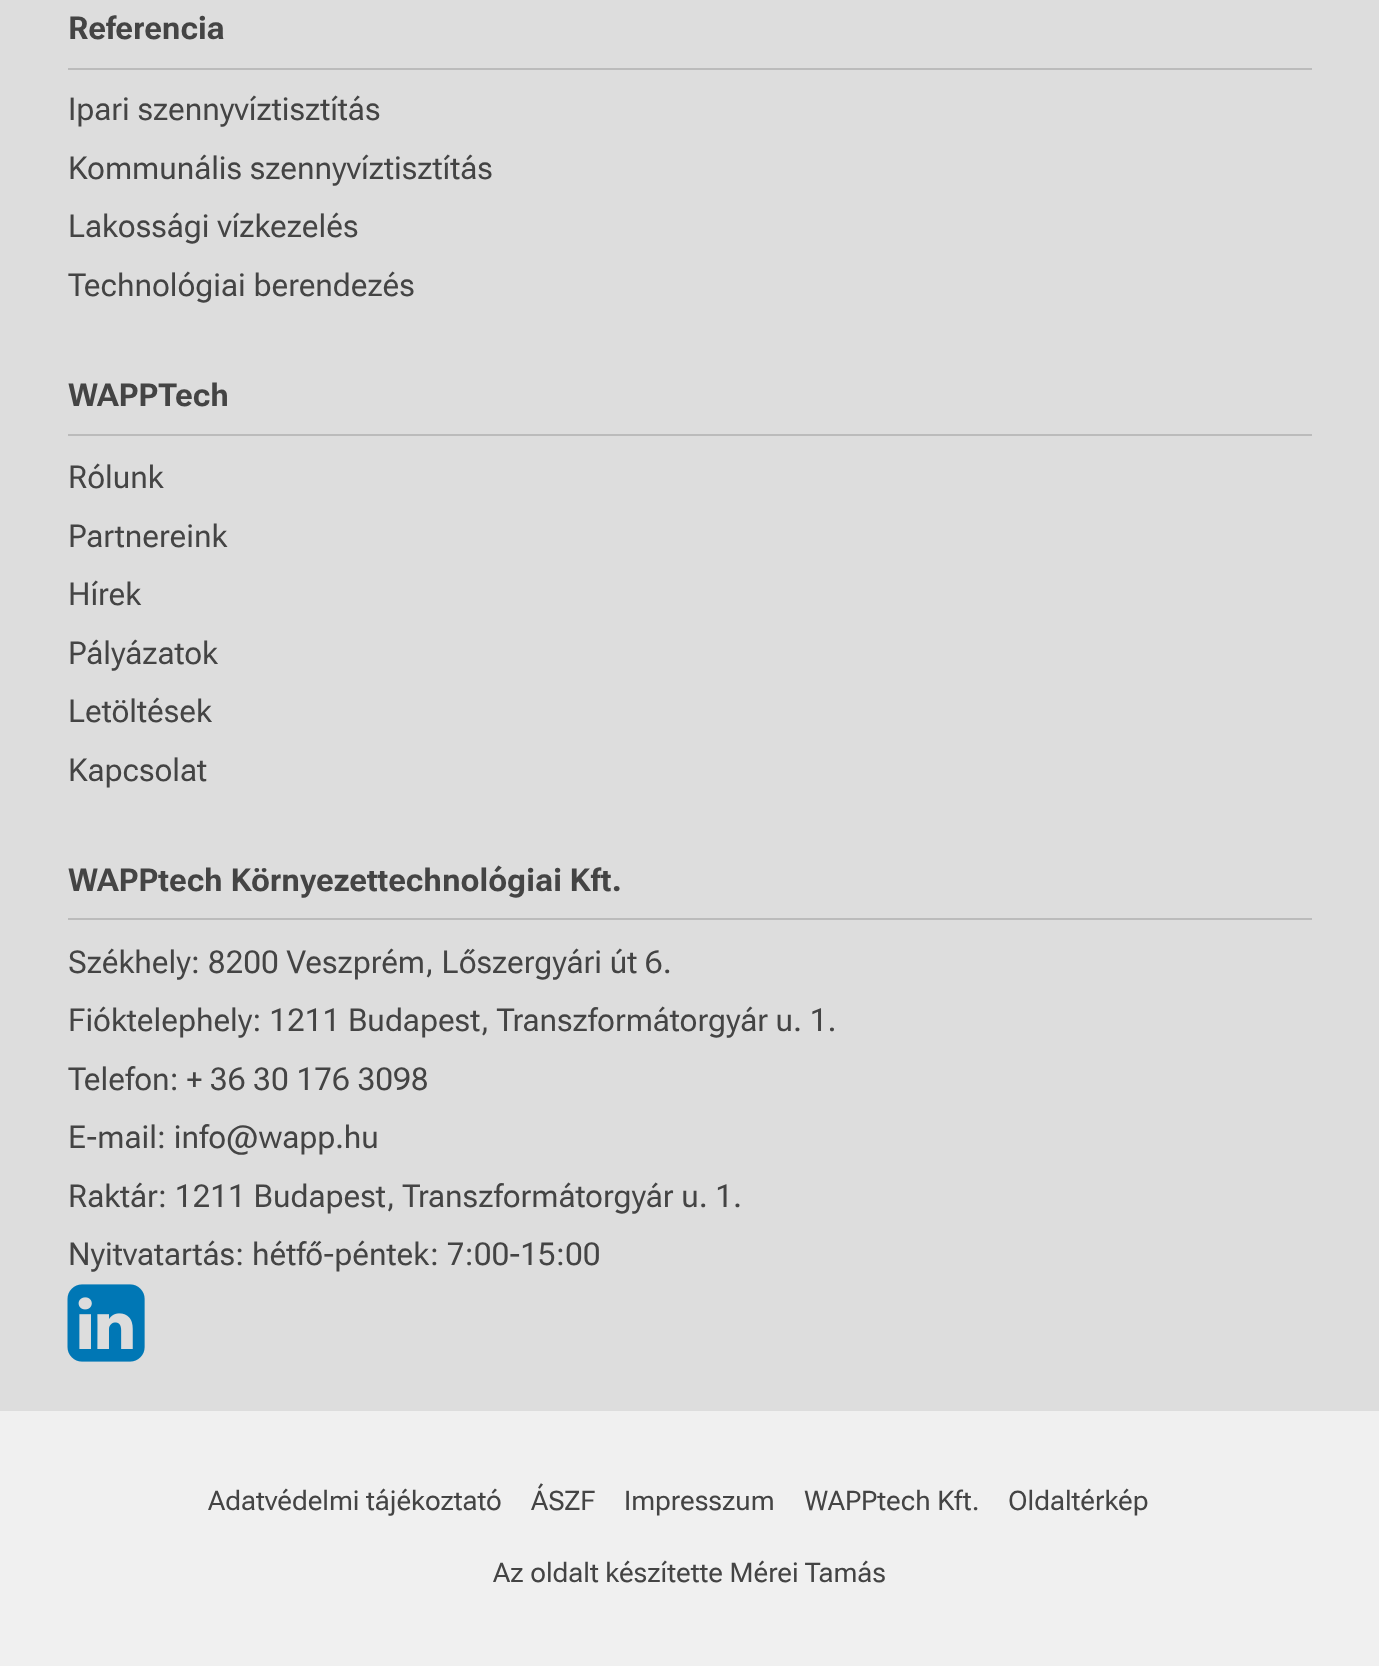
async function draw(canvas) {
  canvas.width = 1379;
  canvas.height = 1666;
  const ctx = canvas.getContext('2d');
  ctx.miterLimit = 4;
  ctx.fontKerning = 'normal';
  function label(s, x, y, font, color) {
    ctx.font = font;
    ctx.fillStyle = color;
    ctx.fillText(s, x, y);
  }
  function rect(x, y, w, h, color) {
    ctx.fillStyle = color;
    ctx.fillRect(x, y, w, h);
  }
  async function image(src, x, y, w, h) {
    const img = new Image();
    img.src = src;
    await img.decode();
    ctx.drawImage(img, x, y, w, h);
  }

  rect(0, 0, 1379, 1666, '#f0f0f0');
  rect(0, 0, 1379, 1411, '#ddd');
  rect(68, 68, 1244, 2, '#bbb');
  label('Referencia', 68, 39, 'bold 31.5px Roboto Flex', '#444');
  label('Ipari szennyvíztisztítás', 68, 120, '31.5px Roboto Flex', '#444');
  label('Kommunális szennyvíztisztítás', 68, 179, '31.5px Roboto Flex', '#444');
  label('Lakossági vízkezelés', 68, 237, '31.5px Roboto Flex', '#444');
  label('Technológiai berendezés', 68, 296, '31.5px Roboto Flex', '#444');
  rect(68, 434, 1244, 2, '#bbb');
  label('WAPPTech', 68, 406, 'bold 31.5px Roboto Flex', '#444');
  label('Rólunk', 68, 488, '31.5px Roboto Flex', '#444');
  label('Partnereink', 68, 547, '31.5px Roboto Flex', '#444');
  label('Hírek', 68, 605, '31.5px Roboto Flex', '#444');
  label('Pályázatok', 68, 664, '31.5px Roboto Flex', '#444');
  label('Letöltések', 68, 722, '31.5px Roboto Flex', '#444');
  label('Kapcsolat', 68, 781, '31.5px Roboto Flex', '#444');
  rect(68, 918, 1244, 2, '#bbb');
  label('WAPPtech Környezettechnológiai Kft.', 68, 891, 'bold 31.5px Roboto Flex', '#444');
  label('Székhely: 8200 Veszprém, Lőszergyári út 6.', 68, 973, '31.5px Roboto Flex', '#444');
  label('Fióktelephely: 1211 Budapest, Transzformátorgyár u. 1.', 68, 1031, '31.5px Roboto Flex', '#444');
  label('Telefon: + 36 30 176 3098', 68, 1090, '31.5px Roboto Flex', '#444');
  label('E-mail: info@wapp.hu', 68, 1148, '31.5px Roboto Flex', '#444');
  label('Raktár: 1211 Budapest, Transzformátorgyár u. 1.', 68, 1207, '31.5px Roboto Flex', '#444');
  label('Nyitvatartás: hétfő-péntek: 7:00-15:00', 68, 1265, '31.5px Roboto Flex', '#444');
  await image('assets/img1.png', 67, 1284, 78, 78);
  label('Adatvédelmi tájékoztató', 208, 1510, '27px "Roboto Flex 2"', '#444');
  label('ÁSZF', 531, 1510, '27px "Roboto Flex 2"', '#444');
  label('Impresszum', 624, 1510, '27px "Roboto Flex 2"', '#444');
  label('WAPPtech Kft.', 804, 1510, '27px "Roboto Flex 2"', '#444');
  label('Oldaltérkép', 1008, 1510, '27px "Roboto Flex 2"', '#444');
  label('Az oldalt készítette Mérei Tamás', 493, 1582, '27px "Roboto Flex 2"', '#444');
}

draw(document.querySelector('canvas'));
